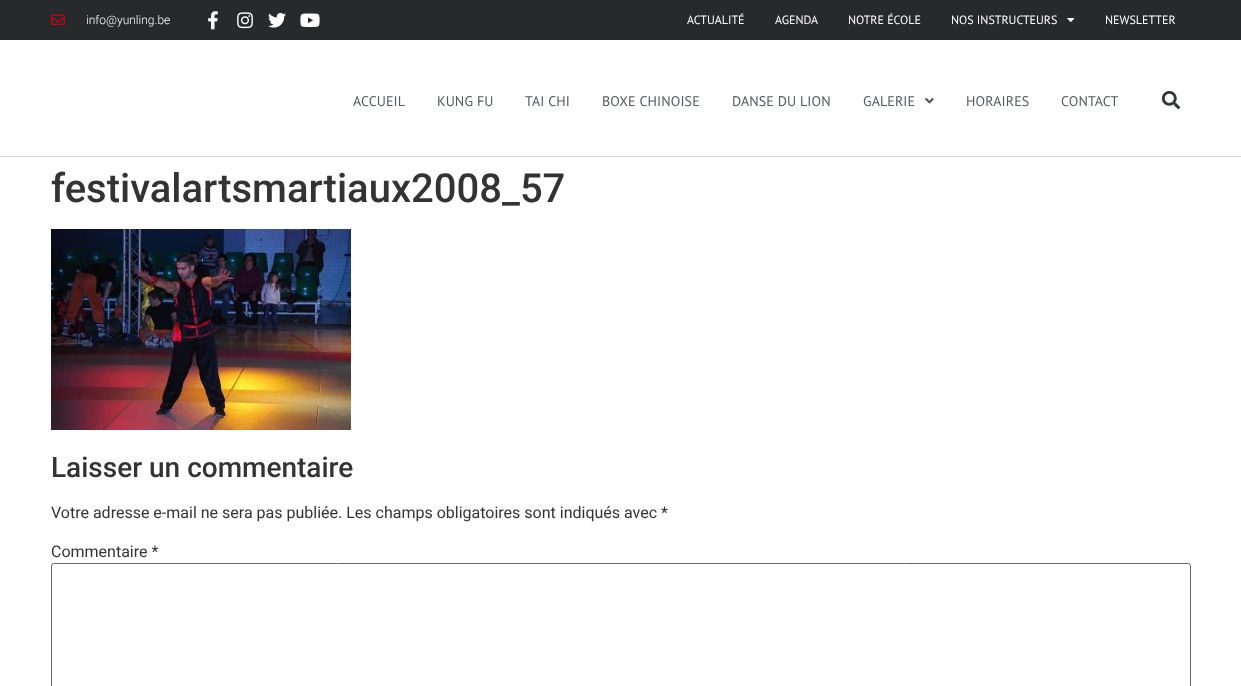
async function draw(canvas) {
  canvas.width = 1241;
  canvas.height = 686;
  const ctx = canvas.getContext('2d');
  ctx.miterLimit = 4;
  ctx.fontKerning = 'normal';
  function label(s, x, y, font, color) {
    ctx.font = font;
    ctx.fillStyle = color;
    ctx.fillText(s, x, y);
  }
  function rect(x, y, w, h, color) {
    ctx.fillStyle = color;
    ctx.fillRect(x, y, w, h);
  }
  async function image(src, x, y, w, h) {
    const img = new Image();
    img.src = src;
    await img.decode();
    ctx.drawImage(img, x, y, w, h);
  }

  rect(0, 0, 1241, 686, '#fff');
  rect(0, 0, 1241, 40, '#262a2b');
  await image('assets/img1.png', 51, 14, 14, 11);
  label('info@yunling.be', 86, 24, '300 12px Roboto', '#fff');
  await image('assets/img2.png', 208, 11, 10, 19);
  await image('assets/img3.png', 237, 12, 16, 17);
  await image('assets/img4.png', 268, 12, 18, 16);
  await image('assets/img5.png', 300, 13, 20, 14);
  label('ACTUALITÉ', 687, 24, '12px PT Sans', '#fff');
  label('AGENDA', 775, 24, '12px PT Sans', '#fff');
  label('NOTRE ÉCOLE', 848, 24, '12px PT Sans', '#fff');
  label('NOS INSTRUCTEURS', 951, 24, '12px PT Sans', '#fff');
  await image('assets/img6.png', 1067, 18, 8, 4);
  label('NEWSLETTER', 1105, 24, '12px PT Sans', '#fff');
  rect(0, 156, 1241, 1, '#d8d8d8');
  ctx.letterSpacing = '0.1px';
  label('ACCUEIL', 353, 106, '14px PT Sans', '#54595f');
  label('KUNG FU', 437, 106, '14px PT Sans', '#54595f');
  label('TAI CHI', 525, 106, '14px PT Sans', '#54595f');
  label('BOXE CHINOISE', 602, 106, '14px PT Sans', '#54595f');
  label('DANSE DU LION', 732, 106, '14px PT Sans', '#54595f');
  label('GALERIE', 863, 106, '14px PT Sans', '#54595f');
  await image('assets/img7.png', 925, 98, 9, 6);
  label('HORAIRES', 966, 106, '14px PT Sans', '#54595f');
  label('CONTACT', 1061, 106, '14px PT Sans', '#54595f');
  await image('assets/img8.png', 1161, 90, 20, 20);
  ctx.letterSpacing = '0px';
  label('festivalartsmartiaux2008_57', 51, 202, '500 40px Roboto', '#333');
  await image('assets/img9.png', 51, 229, 300, 201);
  label('Laisser un commentaire', 51, 477, '500 28px Roboto', '#333');
  label('Votre adresse e-mail ne sera pas publiée. Les champs obligatoires sont indiqués avec *', 51, 518, '16px Roboto', '#333');
  label('Commentaire *', 51, 557, '16px Roboto', '#333');
  ctx.beginPath();
  ctx.roundRect(51.5, 563.5, 1139, 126, 2.5);
  ctx.strokeStyle = '#666';
  ctx.stroke();
}

draw(document.querySelector('canvas'));
